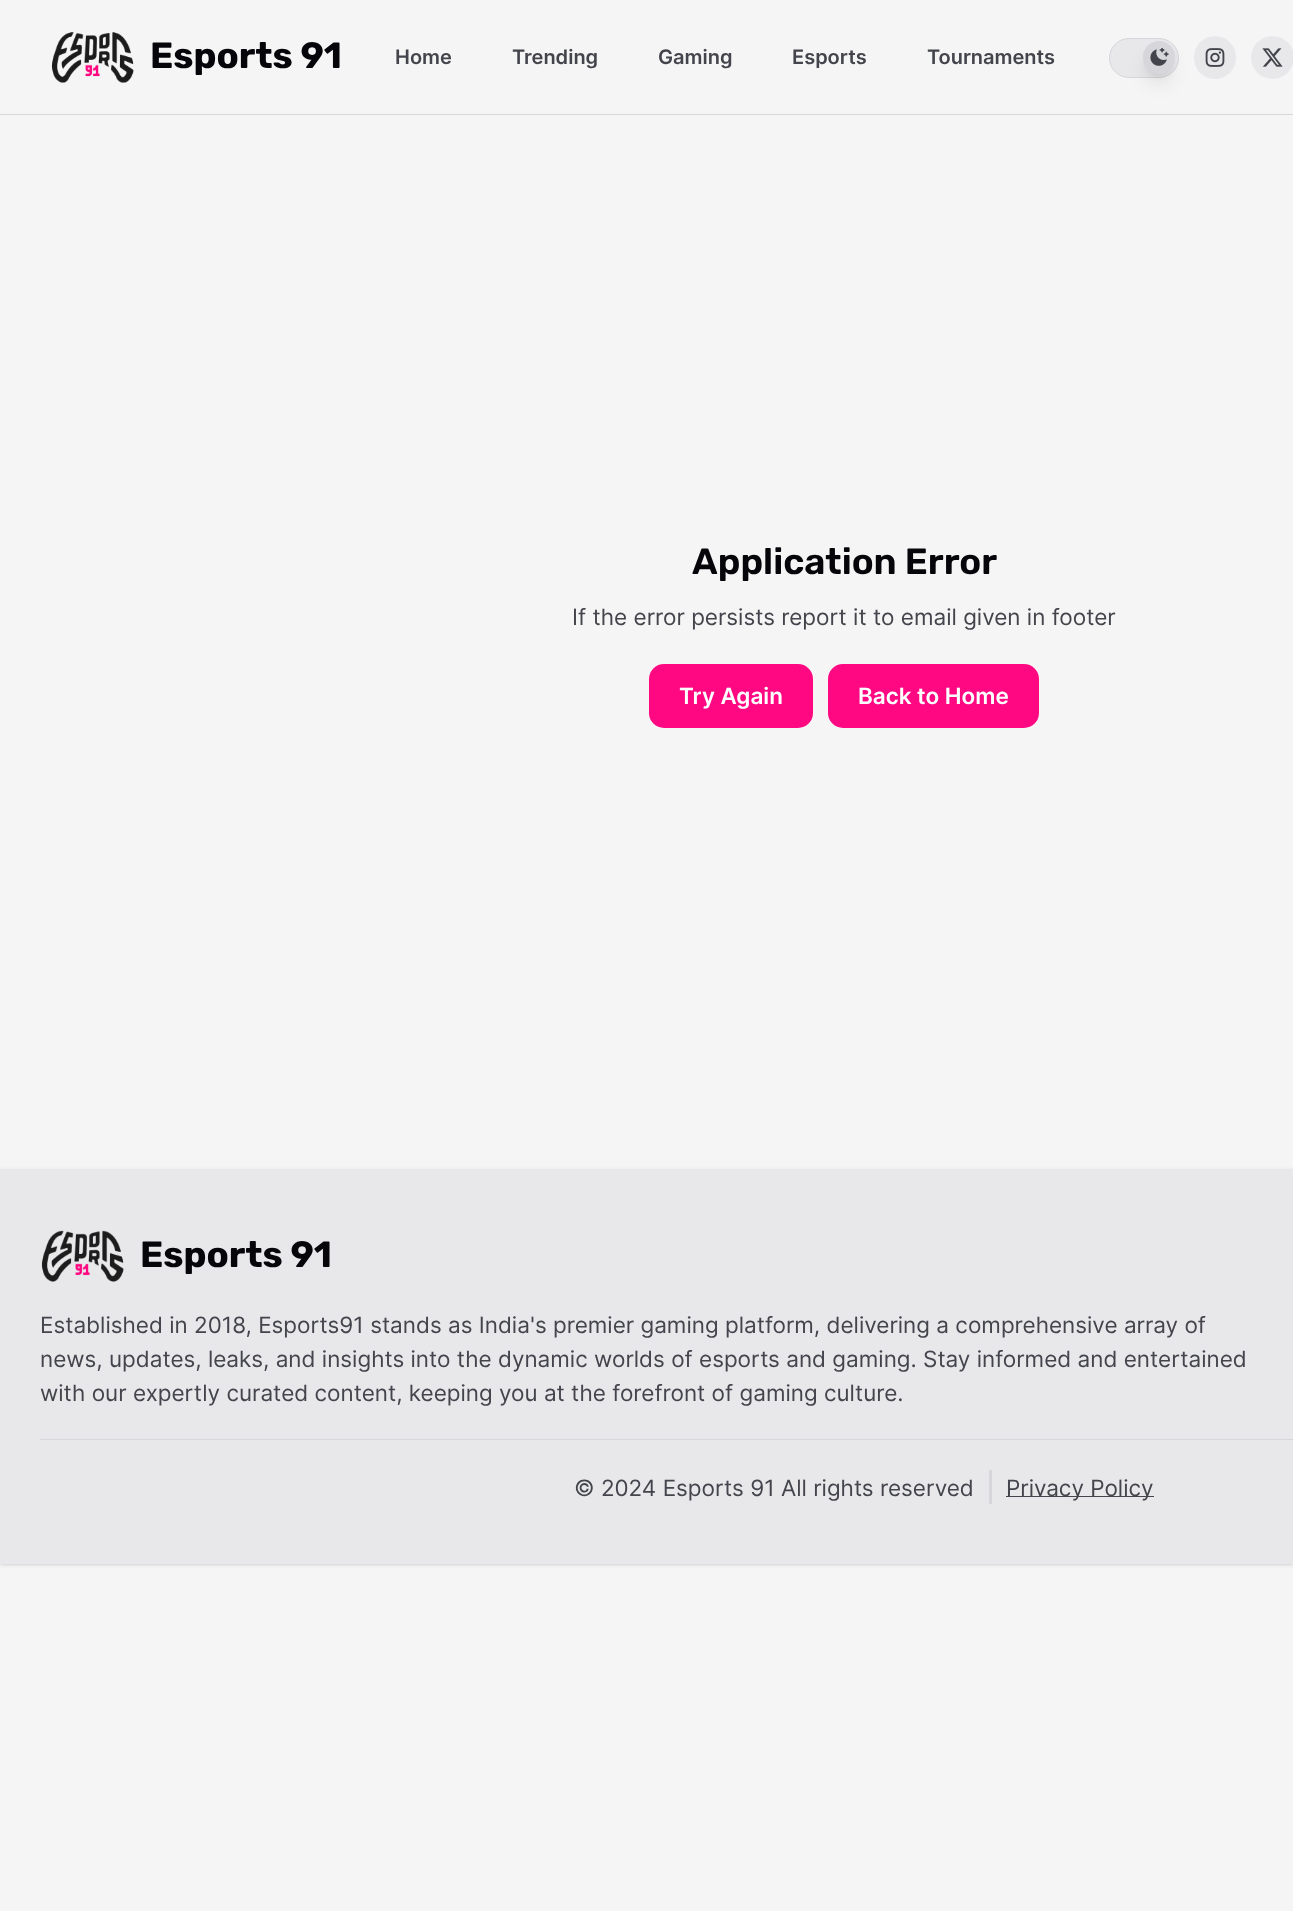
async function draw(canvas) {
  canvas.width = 1293;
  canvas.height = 1911;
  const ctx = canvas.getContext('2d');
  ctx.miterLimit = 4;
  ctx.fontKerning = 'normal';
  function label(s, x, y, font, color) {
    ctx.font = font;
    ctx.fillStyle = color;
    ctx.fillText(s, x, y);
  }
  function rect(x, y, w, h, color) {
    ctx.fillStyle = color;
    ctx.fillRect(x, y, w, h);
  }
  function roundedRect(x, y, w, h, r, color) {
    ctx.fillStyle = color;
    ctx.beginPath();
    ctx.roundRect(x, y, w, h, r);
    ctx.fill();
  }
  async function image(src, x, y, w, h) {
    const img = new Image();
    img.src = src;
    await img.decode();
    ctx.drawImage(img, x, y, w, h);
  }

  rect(0, 0, 1293, 1911, '#f5f5f5');
  rect(0, 114, 1293, 1, '#d6d6db');
  await image('assets/img1.png', 51, 32, 83, 51);
  label('Esports 91', 150, 68, 'bold 36.5px Rubik', '#05050a');
  label('Home', 395, 64, '600 20px Inter', '#44454c');
  label('Trending', 512, 64, '600 20px Inter', '#44454c');
  label('Gaming', 658, 64, '600 20px Inter', '#44454c');
  label('Esports', 792, 64, '600 20px Inter', '#44454c');
  label('Tournaments', 927, 64, '600 20px Inter', '#44454c');
  ctx.fillStyle = '#e8e8eb';
  ctx.beginPath();
  ctx.roundRect(1109.5, 38.5, 69, 39, 19.5);
  ctx.fill();
  ctx.strokeStyle = '#d6d6db';
  ctx.stroke();
  ctx.fillStyle = '#0000001a';
  ctx.filter = 'blur(4px)';
  ctx.beginPath();
  ctx.roundRect(1148, 51, 22, 23, 11);
  ctx.fill();
  ctx.filter = 'none';
  roundedRect(1194, 36, 42, 43, 21, '#e8e8eb');
  ctx.fillStyle = '#0000001a';
  ctx.filter = 'blur(9.5px)';
  ctx.beginPath();
  ctx.roundRect(1146, 58, 25, 25, 12.5);
  ctx.fill();
  ctx.filter = 'none';
  roundedRect(1143, 41, 32, 33, 16, '#d6d6db');
  await image('assets/img2.png', 1150, 48, 19, 18);
  await image('assets/img3.png', 1205, 48, 20, 19);
  ctx.fillStyle = '#e8e8eb';
  ctx.beginPath();
  ctx.arc(1272.5, 57.5, 21.5, 0, 2 * Math.PI);
  ctx.fill();
  await image('assets/img4.png', 1262, 48, 21, 19);
  label('Application Error', 692, 574, '600 36.5px Rubik', '#05050a');
  label('If the error persists report it to email given in footer', 572, 625, '22.5px Inter', '#44454c');
  roundedRect(649, 664, 164, 64, 15, '#ff0882');
  label('Try Again', 679, 704, '600 22.5px Inter', '#fff');
  roundedRect(828, 664, 211, 64, 15, '#ff0882');
  label('Back to Home', 858, 704, '600 22.5px Inter', '#fff');
  ctx.fillStyle = '#0000001a';
  ctx.filter = 'blur(1px)';
  ctx.beginPath();
  ctx.rect(1, 1171, 1292, 393);
  ctx.fill();
  ctx.filter = 'none';
  ctx.filter = 'blur(2px)';
  ctx.beginPath();
  ctx.rect(0, 1170, 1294, 395);
  ctx.fill();
  ctx.filter = 'none';
  rect(0, 1169, 1293, 395, '#e8e8eb');
  await image('assets/img5.png', 41, 1230, 83, 52);
  label('Esports 91', 140, 1267, 'bold 36.5px Rubik', '#05050a');
  label('Established in 2018, Esports91 stands as India\'s premier gaming platform, delivering a comprehensive array of', 40, 1333, '22.5px Inter', '#44454c');
  label('news, updates, leaks, and insights into the dynamic worlds of esports and gaming. Stay informed and entertained', 40, 1367, '22.5px Inter', '#44454c');
  label('with our expertly curated content, keeping you at the forefront of gaming culture.', 40, 1401, '22.5px Inter', '#44454c');
  rect(40, 1439, 1253, 1, '#d6d6db');
  label('© 2024 Esports 91 All rights reserved', 574, 1496, '22.5px Inter', '#44454c');
  rect(989, 1470, 3, 34, '#d6d6db');
  rect(1006, 1496, 148, 1, '#44454c');
  label('Privacy Policy', 1006, 1496, '22.5px Inter', '#44454c');
}

draw(document.querySelector('canvas'));
